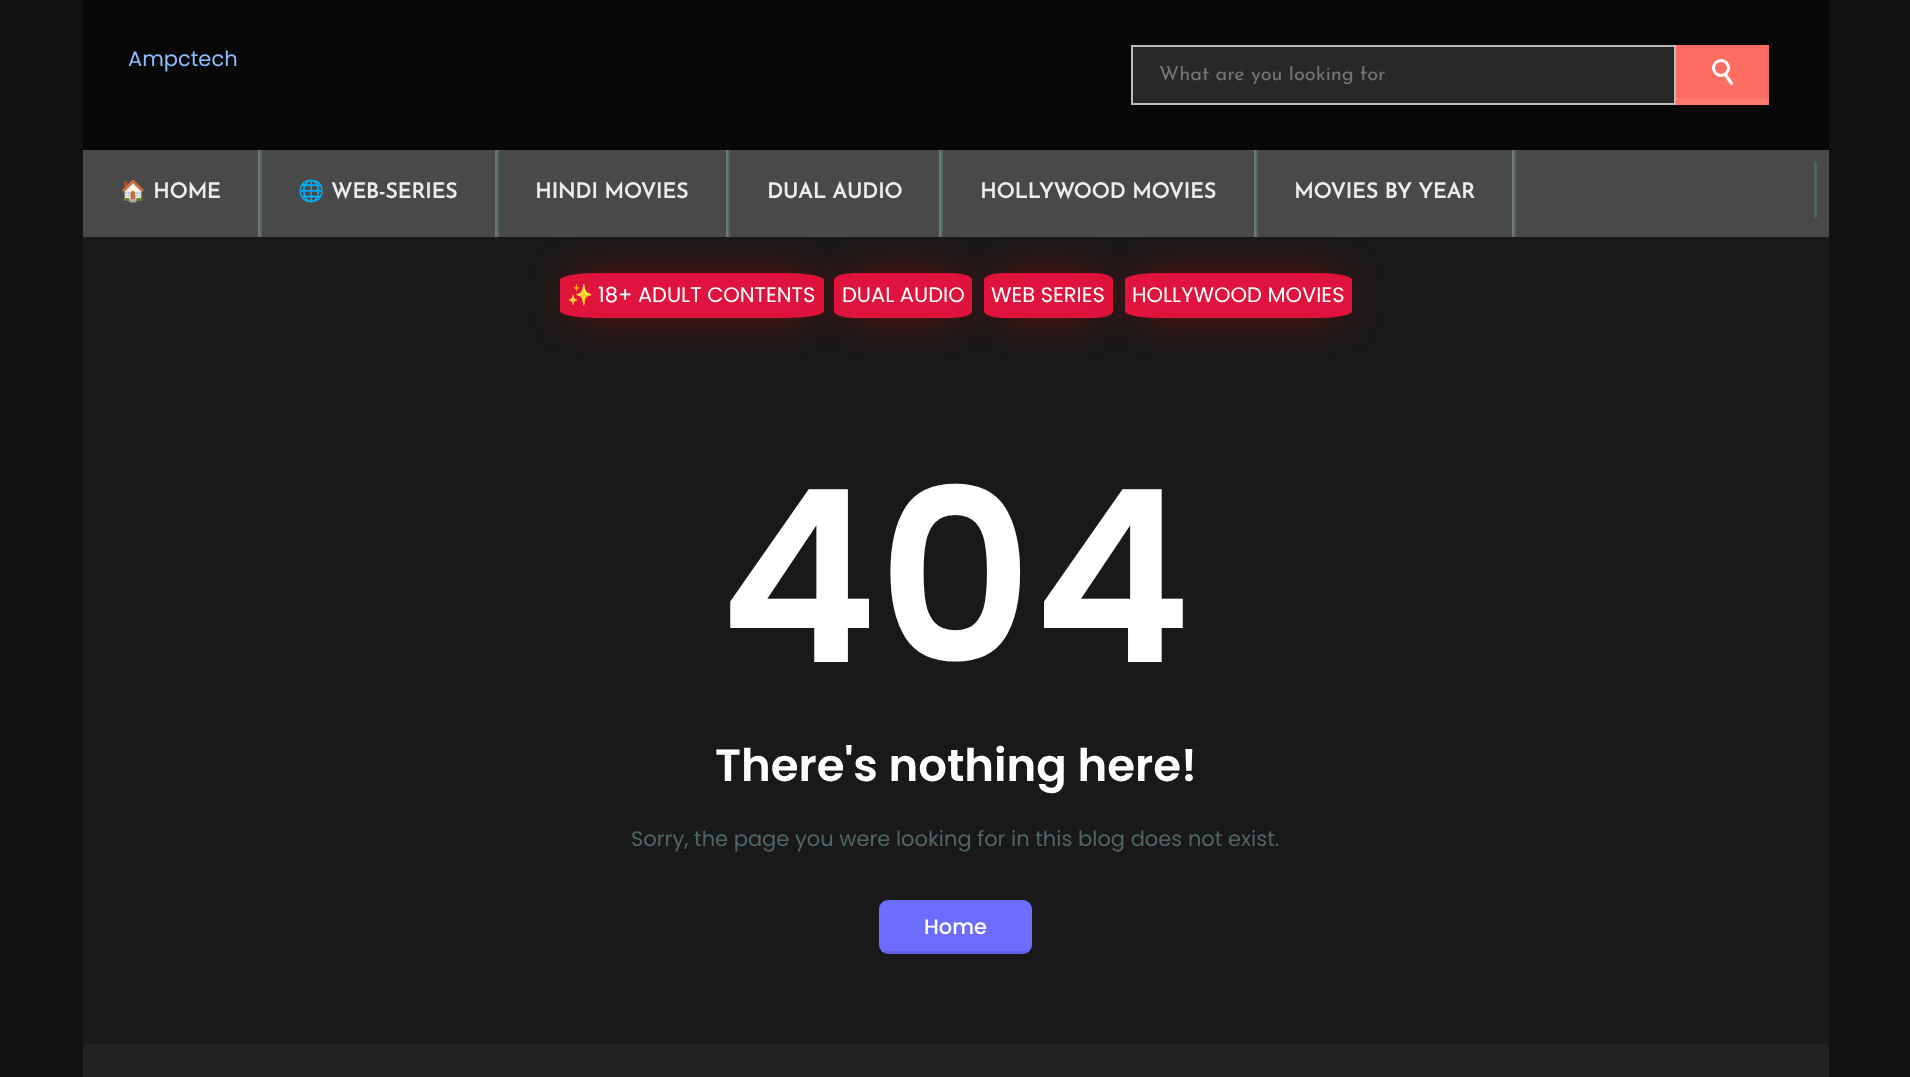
async function draw(canvas) {
  canvas.width = 1910;
  canvas.height = 1077;
  const ctx = canvas.getContext('2d');
  ctx.miterLimit = 4;
  ctx.fontKerning = 'normal';
  function label(s, x, y, font, color) {
    ctx.font = font;
    ctx.fillStyle = color;
    ctx.fillText(s, x, y);
  }
  function rect(x, y, w, h, color) {
    ctx.fillStyle = color;
    ctx.fillRect(x, y, w, h);
  }
  function roundedRect(x, y, w, h, r, color) {
    ctx.fillStyle = color;
    ctx.beginPath();
    ctx.roundRect(x, y, w, h, r);
    ctx.fill();
  }
  let path;

  rect(0, 0, 1910, 1077, '#111');
  rect(83, 237, 1746, 807, '#191919');
  rect(83, 0, 1746, 150, '#080808');
  label('Ampctech', 128, 66, '21px Poppins', '#8dbbff');
  ctx.fillStyle = '#282828';
  ctx.beginPath();
  ctx.rect(1132, 46, 543, 58);
  ctx.fill();
  ctx.strokeStyle = '#bbb';
  ctx.lineWidth = 2;
  ctx.stroke();
  ctx.save();
  ctx.beginPath();
  ctx.rect(1158, 66, 513, 20);
  ctx.clip();
  label('What are you looking for', 1159, 80, '100 20px Josefin Sans', '#757575');
  ctx.restore();
  rect(1676, 45, 93, 53, '#fe6d62');
  rect(1676, 98, 93, 7, '#ff796f');
  ctx.fillStyle = '#fff';
  path = new Path2D('M1724 75.5L1726.5 73.5L1733.5 83.5L1731 85.5Z');
  ctx.fill(path);
  ctx.beginPath();
  ctx.arc(1721, 68, 7.5, 0, 2 * Math.PI);
  ctx.strokeStyle = '#fff';
  ctx.lineWidth = 3;
  ctx.stroke();
  ctx.fillStyle = '#fe0000';
  ctx.filter = 'blur(24px)';
  ctx.beginPath();
  ctx.rect(575, 288, 234, 15);
  ctx.fill();
  ctx.filter = 'none';
  ctx.fillStyle = '#df133c';
  path = new Path2D('M599 273H784C806 273 824 276 824 280V311C824 315 806 318 784 318H599C577 318 560 315 560 311V280C560 276 577 273 599 273Z');
  ctx.fill(path);
  ctx.fillStyle = '#fe0000';
  ctx.filter = 'blur(24px)';
  ctx.beginPath();
  ctx.rect(849, 288, 108, 15);
  ctx.fill();
  ctx.filter = 'none';
  ctx.fillStyle = '#df133c';
  path = new Path2D('M855 273H951C963 273 972 276 972 280V311C972 315 963 318 951 318H855C843 318 834 315 834 311V280C834 276 843 273 855 273Z');
  ctx.fill(path);
  ctx.fillStyle = '#fe0000';
  ctx.filter = 'blur(24px)';
  ctx.beginPath();
  ctx.rect(999, 288, 99, 15);
  ctx.fill();
  ctx.filter = 'none';
  ctx.fillStyle = '#df133c';
  path = new Path2D('M1003 273H1094C1104 273 1113 276 1113 280V311C1113 315 1104 318 1094 318H1003C993 318 984 315 984 311V280C984 276 993 273 1003 273Z');
  ctx.fill(path);
  ctx.fillStyle = '#fe0000';
  ctx.filter = 'blur(24px)';
  ctx.beginPath();
  ctx.rect(1140, 288, 197, 15);
  ctx.fill();
  ctx.filter = 'none';
  rect(83, 150, 1746, 87, '#494949');
  rect(260, 150, 2, 87, '#4f6667');
  rect(258, 150, 2, 87, '#757575');
  label('🏠', 120, 198, 'bold 21px Noto Color Emoji', '#ececec');
  label('HOME', 153, 198, 'bold 21px Josefin Sans', '#ececec');
  rect(497, 150, 2, 87, '#4f6667');
  rect(495, 150, 2, 87, '#757575');
  label('🌐', 298, 198, 'bold 21px Noto Color Emoji', '#ececec');
  label('WEB-SERIES', 331, 198, 'bold 21px Josefin Sans', '#ececec');
  rect(728, 150, 2, 87, '#4f6667');
  rect(726, 150, 2, 87, '#757575');
  label('HINDI MOVIES', 535, 198, 'bold 21px Josefin Sans', '#ececec');
  rect(941, 150, 2, 87, '#4f6667');
  rect(939, 150, 2, 87, '#757575');
  label('DUAL AUDIO', 767, 198, 'bold 21px Josefin Sans', '#ececec');
  rect(1256, 150, 2, 87, '#4f6667');
  rect(1254, 150, 2, 87, '#757575');
  label('HOLLYWOOD MOVIES', 980, 198, 'bold 21px Josefin Sans', '#ececec');
  rect(1514, 150, 2, 87, '#4f6667');
  rect(1512, 150, 2, 87, '#757575');
  label('MOVIES BY YEAR', 1294, 198, 'bold 21px Josefin Sans', '#ececec');
  roundedRect(1814, 162, 3, 56, 1.5, '#4f6667');
  label('✨', 567, 302, '21px Noto Color Emoji', '#fff');
  label('18+ ADULT CONTENTS', 598, 302, '21px Poppins', '#fff');
  label('DUAL AUDIO', 842, 302, '21px Poppins', '#fff');
  label('WEB SERIES', 991, 302, '21px Poppins', '#fff');
  ctx.fillStyle = '#df133c';
  path = new Path2D('M1159 273H1318C1336 273 1352 276 1352 280V311C1352 315 1336 318 1318 318H1159C1140 318 1125 315 1125 311V280C1125 276 1140 273 1159 273Z');
  ctx.fill(path);
  label('HOLLYWOOD MOVIES', 1132, 302, '21px Poppins', '#fff');
  label('404', 719, 662, '600 240px Poppins', '#fff');
  label('There\'s nothing here!', 715, 781, '600 45px Poppins', '#fff');
  label('Sorry, the page you were looking for in this blog does not exist.', 631, 846, '21px Poppins', '#4f6667');
  roundedRect(879, 900, 153, 54, 9, '#6c6cfe');
  rect(884, 951, 144, 3, '#0000001a');
  label('Home', 924, 934, '500 21px Poppins', '#fff');
  rect(83, 1044, 1746, 33, '#222');
}

draw(document.querySelector('canvas'));
